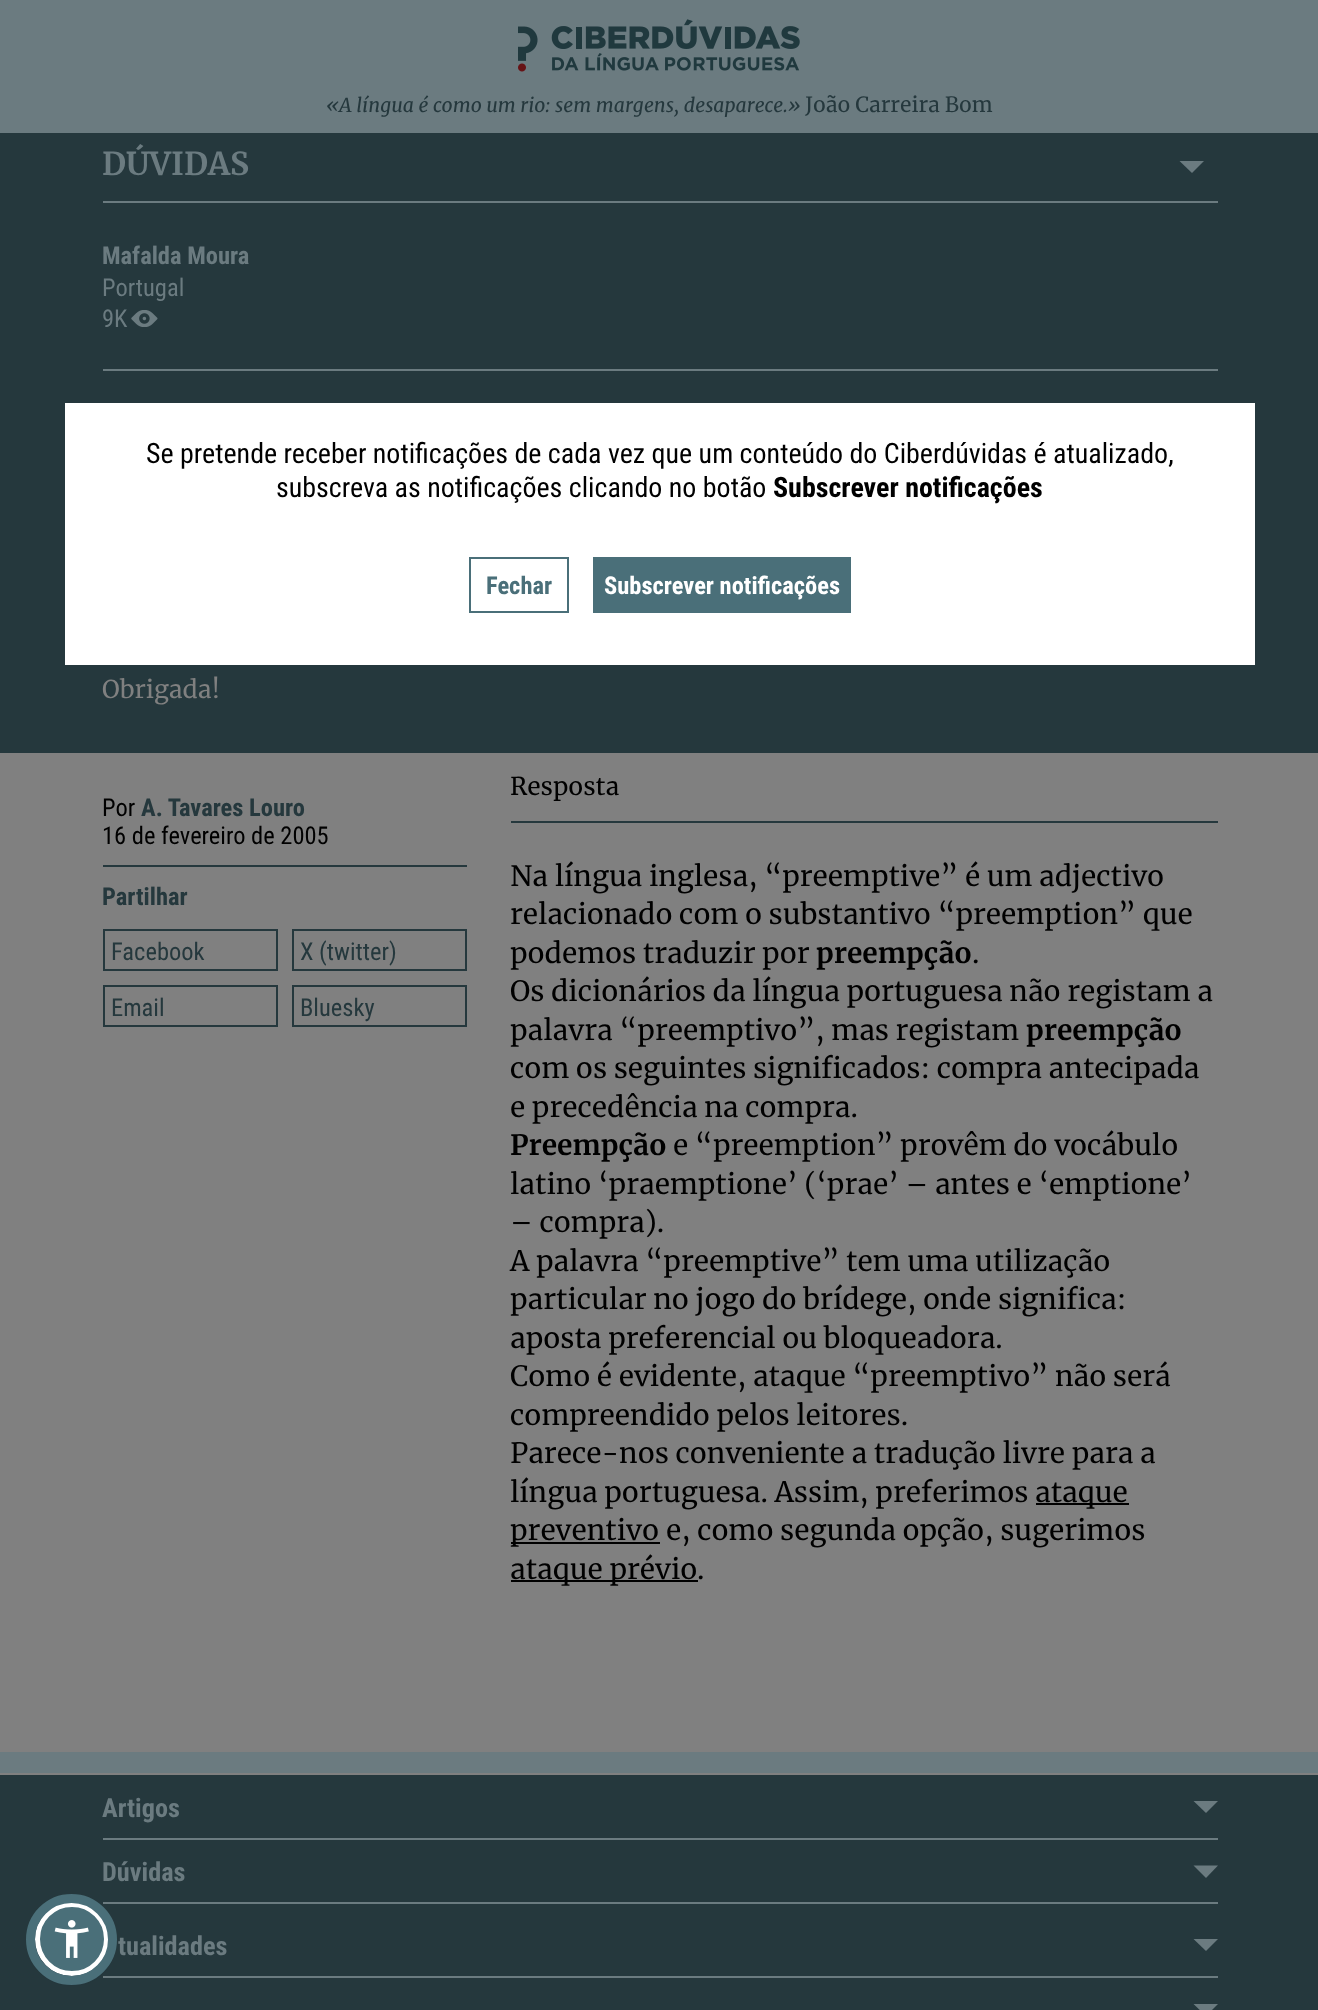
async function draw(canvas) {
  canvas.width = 1318;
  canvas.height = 2010;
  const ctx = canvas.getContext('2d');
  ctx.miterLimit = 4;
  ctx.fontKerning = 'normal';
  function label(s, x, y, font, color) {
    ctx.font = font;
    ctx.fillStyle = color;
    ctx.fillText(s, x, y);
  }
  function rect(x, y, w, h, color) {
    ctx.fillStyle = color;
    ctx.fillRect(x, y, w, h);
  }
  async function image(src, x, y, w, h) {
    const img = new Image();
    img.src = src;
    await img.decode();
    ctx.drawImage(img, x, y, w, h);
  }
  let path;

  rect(0, 0, 1318, 2010, '#808080');
  rect(0, 1775, 1318, 235, '#25383d');
  rect(103, 1902, 1115, 2, '#6b7b80');
  rect(103, 1976, 1115, 2, '#6b7b80');
  ctx.fillStyle = '#5d649433';
  ctx.filter = 'blur(3.5px)';
  ctx.beginPath();
  ctx.roundRect(35, 1906, 74, 73, 36.5);
  ctx.fill();
  ctx.filter = 'none';
  ctx.fillStyle = '#4a6f79';
  ctx.beginPath();
  ctx.arc(72, 1939, 34.5, 0, 2 * Math.PI);
  ctx.fill();
  ctx.strokeStyle = '#fff';
  ctx.lineWidth = 5;
  ctx.stroke();
  ctx.beginPath();
  ctx.arc(71.5, 1939.5, 41, 0, 2 * Math.PI);
  ctx.strokeStyle = '#4a6f79';
  ctx.lineWidth = 9;
  ctx.stroke();
  await image('assets/img1.png', 54, 1920, 35, 38);
  rect(0, 0, 1318, 133, '#6b7b80');
  await image('assets/img2.png', 518, 19, 282, 53);
  label('«A língua é como um rio: sem margens, desaparece.»', 326, 112, 'italic 19.25px Merriweather', '#25383d');
  label('João Carreira Bom', 805, 112, '21px Merriweather', '#25383d');
  rect(0, 133, 1318, 620, '#25383d');
  rect(103, 201, 1115, 2, '#6b7b80');
  label('DÚVIDAS', 102, 175, 'bold 31.5px Merriweather', '#6b7b80');
  path = new Path2D('M1179.5 161H1204L1192 173Z');
  ctx.fill(path);
  rect(103, 369, 1115, 2, '#6b7b80');
  label('Mafalda Moura', 102, 264, 'bold 24.5px Roboto Condensed', '#6b7b80');
  label('Portugal', 102, 296, '24.5px Roboto Condensed', '#6b7b80');
  label('9K', 102, 327, '24.5px Roboto Condensed', '#6b7b80');
  await image('assets/img3.png', 131, 310, 27, 17);
  label('Obrigada!', 102, 698, '24.5px Merriweather', '#808080');
  label('Por', 102, 816, '24.5px Roboto Condensed', '#000');
  label('A. Tavares Louro', 141, 816, 'bold 24.5px Roboto Condensed', '#25383d');
  label('16 de fevereiro de 2005', 102, 844, '24.5px Roboto Condensed', '#000');
  rect(103, 865, 364, 2, '#25383d');
  label('Partilhar', 102, 905, 'bold 24.5px Roboto Condensed', '#25383d');
  ctx.strokeStyle = '#25383d';
  ctx.lineWidth = 2;
  ctx.strokeRect(104, 930, 173, 40);
  label('Facebook', 111, 960, '24.5px Roboto Condensed', '#25383d');
  ctx.strokeRect(293, 930, 173, 40);
  label('X (twitter)', 300, 960, '24.5px Roboto Condensed', '#25383d');
  ctx.strokeRect(104, 986, 173, 40);
  label('Email', 111, 1016, '24.5px Roboto Condensed', '#25383d');
  ctx.strokeRect(293, 986, 173, 40);
  label('Bluesky', 300, 1016, '24.5px Roboto Condensed', '#25383d');
  rect(511, 821, 707, 2, '#25383d');
  label('Resposta', 510, 795, '24.5px Merriweather', '#000');
  label('Na língua inglesa, “preemptive” é um adjectivo', 510, 886, '28px Merriweather', '#000');
  label('relacionado com o substantivo “preemption” que', 510, 924, '28px Merriweather', '#000');
  label('podemos traduzir por', 510, 963, '28px Merriweather', '#000');
  label('preempção', 816, 963, 'bold 28px Merriweather', '#000');
  label('.', 972, 963, '28px Merriweather', '#000');
  label('Os dicionários da língua portuguesa não registam a', 510, 1001, '28px Merriweather', '#000');
  label('palavra “preemptivo”, mas registam', 510, 1040, '28px Merriweather', '#000');
  label('preempção', 1026, 1040, 'bold 28px Merriweather', '#000');
  label('com os seguintes significados: compra antecipada', 510, 1078, '28px Merriweather', '#000');
  label('e precedência na compra.', 510, 1117, '28px Merriweather', '#000');
  label('Preempção', 510, 1155, 'bold 28px Merriweather', '#000');
  label('e “preemption” provêm do vocábulo', 673, 1155, '28px Merriweather', '#000');
  label('latino ‘praemptione’ (‘prae’ – antes e ‘emptione’', 510, 1194, '28px Merriweather', '#000');
  label('– compra).', 510, 1232, '28px Merriweather', '#000');
  label('A palavra “preemptive” tem uma utilização', 510, 1271, '28px Merriweather', '#000');
  label('particular no jogo do brídege, onde significa:', 510, 1309, '28px Merriweather', '#000');
  label('aposta preferencial ou bloqueadora.', 510, 1348, '28px Merriweather', '#000');
  label('Como é evidente, ataque “preemptivo” não será', 510, 1386, '28px Merriweather', '#000');
  label('compreendido pelos leitores.', 510, 1425, '28px Merriweather', '#000');
  label('Parece-nos conveniente a tradução livre para a', 510, 1463, '28px Merriweather', '#000');
  label('língua portuguesa. Assim, preferimos', 510, 1502, '28px Merriweather', '#000');
  rect(1036, 1503, 93, 2, '#000');
  label('ataque', 1035, 1502, '28px Merriweather', '#000');
  rect(511, 1542, 149, 2, '#000');
  label('preventivo', 510, 1540, '28px Merriweather', '#000');
  label('e, como segunda opção, sugerimos', 666, 1540, '28px Merriweather', '#000');
  rect(511, 1580, 187, 2, '#000');
  label('ataque prévio', 510, 1579, '28px Merriweather', '#000');
  label('.', 697, 1579, '28px Merriweather', '#000');
  rect(0, 1752, 1318, 21, '#6b7b80');
  rect(65, 403, 1190, 262, '#fff');
  label('Se pretende receber notificações de cada vez que um conteúdo do Ciberdúvidas é atualizado,', 146, 463, '28px Roboto Condensed', '#000');
  label('subscreva as notificações clicando no botão', 276, 497, '28px Roboto Condensed', '#000');
  label('Subscrever notificações', 773, 497, 'bold 28px Roboto Condensed', '#000');
  ctx.strokeStyle = '#4a6f79';
  ctx.strokeRect(470, 558, 98, 54);
  label('Fechar', 486, 594, 'bold 24.5px Roboto Condensed', '#4a6f79');
  rect(593, 557, 258, 56, '#4a6f79');
  label('Subscrever notificações', 604, 594, 'bold 24.5px Roboto Condensed', '#fff');
  rect(103, 1838, 1115, 2, '#6b7b80');
  label('Artigos', 102, 1817, 'bold 26.25px Roboto Condensed', '#6b7b80');
  path = new Path2D('M1193.5 1801H1218L1206 1813Z');
  ctx.fill(path);
  label('Dúvidas', 102, 1881, 'bold 26.25px Roboto Condensed', '#6b7b80');
  path = new Path2D('M1193.5 1865.5H1218L1206 1878Z');
  ctx.fill(path);
  label('tualidades', 118, 1955, 'bold 26.25px Roboto Condensed', '#6b7b80');
  path = new Path2D('M1193.5 1939H1218L1206 1951Z');
  ctx.fill(path);
  path = new Path2D('M1193.5 2004H1218L1206 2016Z');
  ctx.fill(path);
}

draw(document.querySelector('canvas'));
